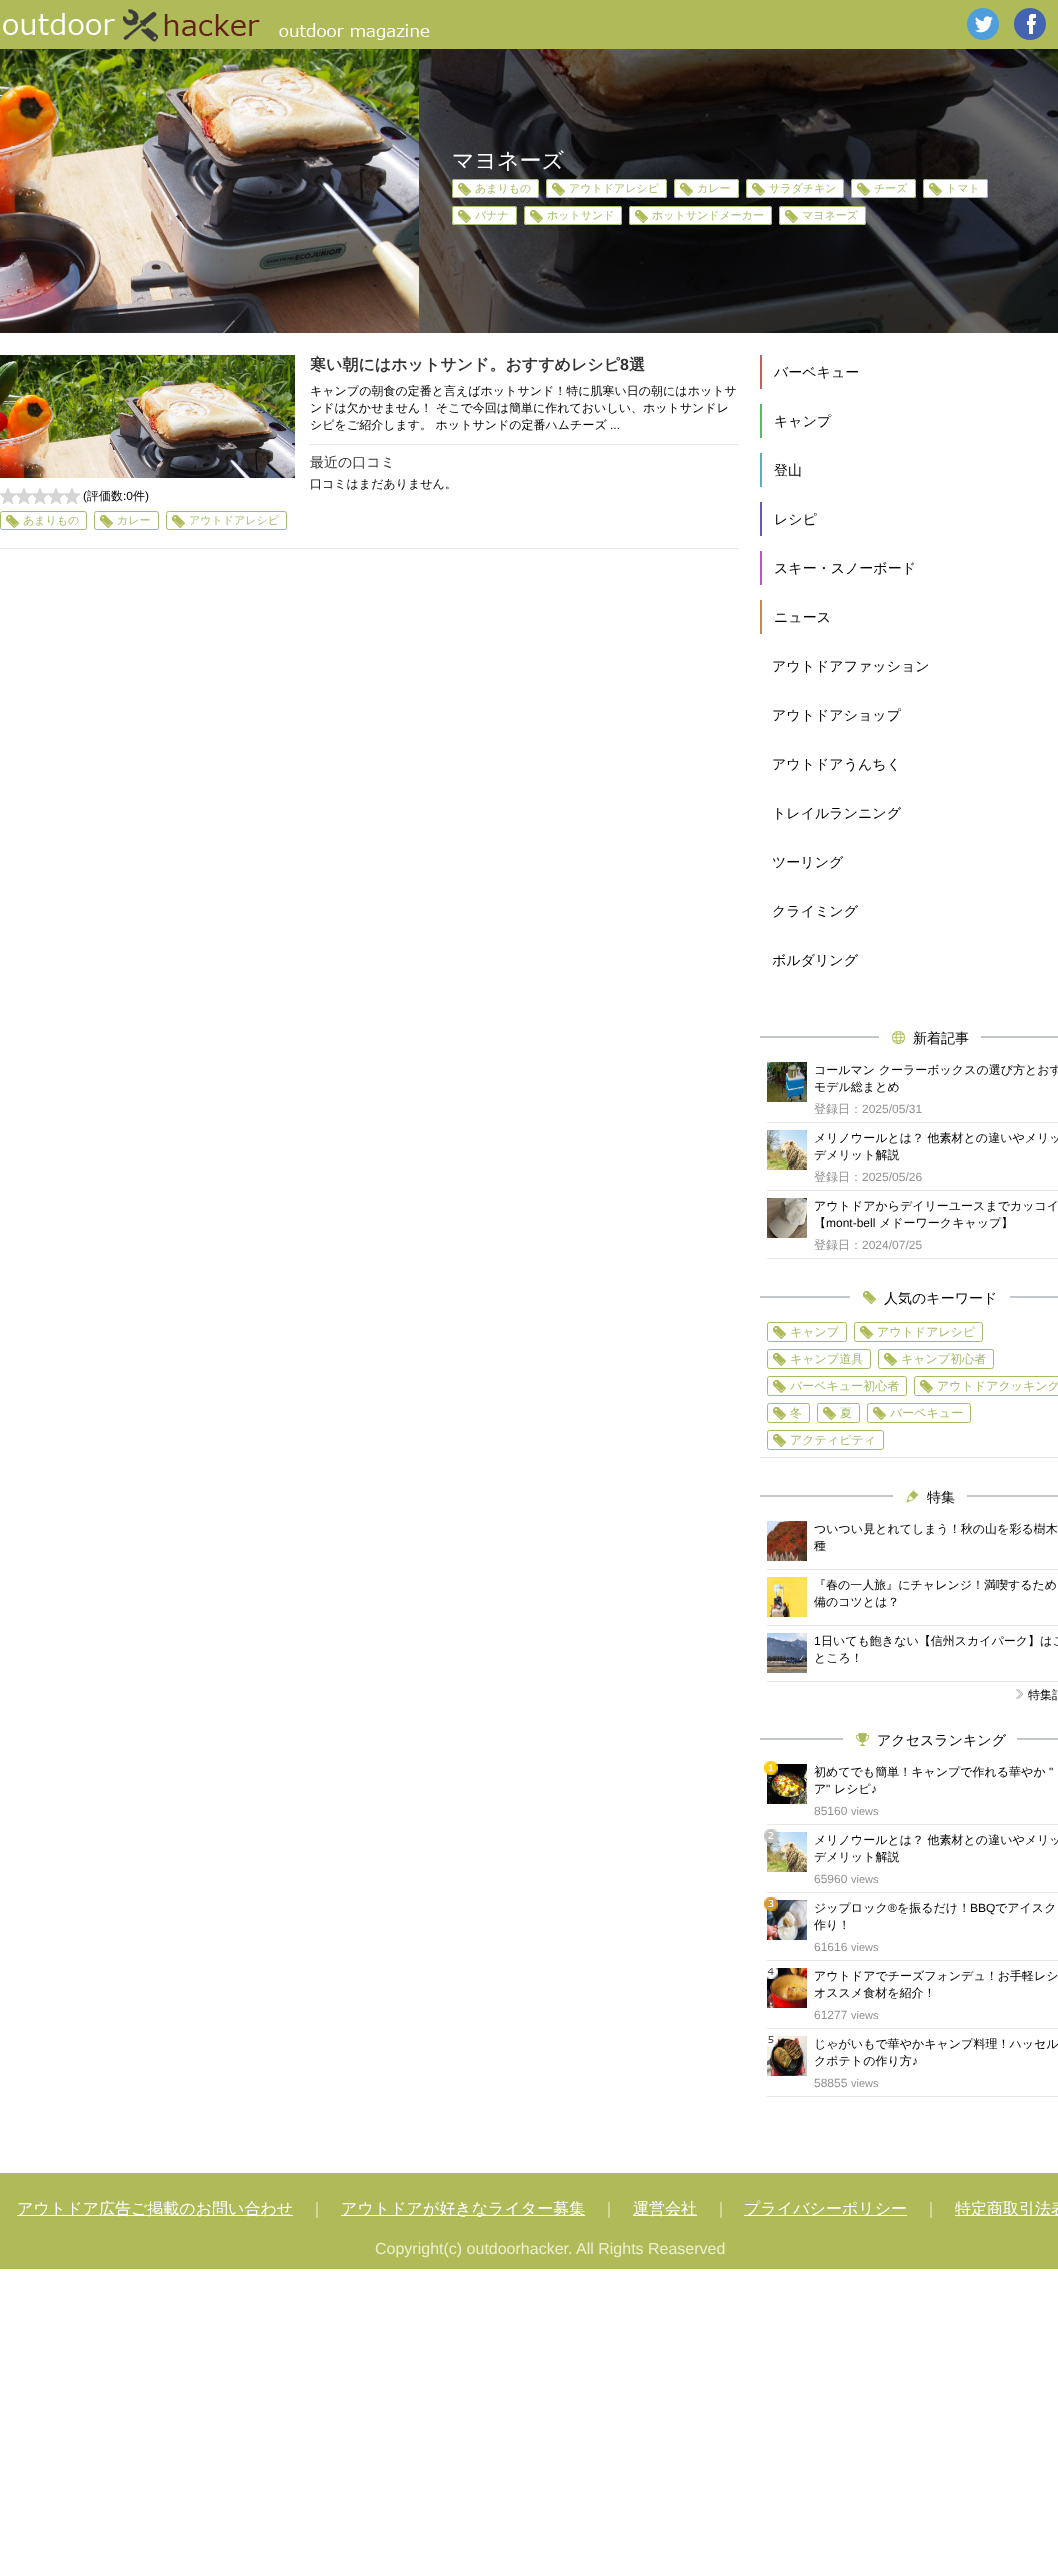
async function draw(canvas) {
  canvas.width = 1058;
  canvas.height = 2557;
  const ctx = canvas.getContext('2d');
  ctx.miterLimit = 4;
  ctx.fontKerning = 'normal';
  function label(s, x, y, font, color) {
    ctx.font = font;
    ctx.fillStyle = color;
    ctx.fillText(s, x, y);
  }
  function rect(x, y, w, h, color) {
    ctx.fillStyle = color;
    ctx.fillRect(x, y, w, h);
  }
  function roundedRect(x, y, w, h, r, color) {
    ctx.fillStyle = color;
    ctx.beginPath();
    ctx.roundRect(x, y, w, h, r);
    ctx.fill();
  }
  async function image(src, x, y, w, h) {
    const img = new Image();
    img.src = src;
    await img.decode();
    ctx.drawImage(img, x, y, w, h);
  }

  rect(0, 0, 1058, 2557, '#fff');
  rect(0, 0, 1058, 49, '#aebb58');
  await image('assets/img1.png', 3, 9, 427, 33);
  await image('assets/img2.png', 967, 8, 32, 32);
  await image('assets/img3.png', 1014, 8, 32, 32);
  await image('assets/img4.png', 419, 49, 639, 284);
  await image('assets/img5.png', 0, 49, 419, 284);
  label('マヨネーズ', 452, 168, '500 22px WenQuanYi Zen Hei', '#fff');
  roundedRect(452, 179, 87, 19, 2.5, '#fff');
  await image('assets/img6.png', 458, 182, 13, 14);
  ctx.beginPath();
  ctx.roundRect(452.5, 179.5, 86, 18, 2);
  ctx.strokeStyle = '#a2bd66';
  ctx.stroke();
  label('あまりもの', 475, 192, '500 11px WenQuanYi Zen Hei', '#a2bd66');
  roundedRect(546, 179, 121, 19, 2.5, '#fff');
  await image('assets/img6.png', 552, 182, 13, 14);
  ctx.beginPath();
  ctx.roundRect(546.5, 179.5, 120, 18, 2);
  ctx.stroke();
  label('アウトドアレシピ', 569, 192, '500 11px WenQuanYi Zen Hei', '#a2bd66');
  roundedRect(674, 179, 65, 19, 2.5, '#fff');
  await image('assets/img6.png', 680, 182, 13, 14);
  ctx.beginPath();
  ctx.roundRect(674.5, 179.5, 64, 18, 2);
  ctx.stroke();
  label('カレー', 697, 192, '500 11px WenQuanYi Zen Hei', '#a2bd66');
  roundedRect(746, 179, 98, 19, 2.5, '#fff');
  await image('assets/img6.png', 752, 182, 13, 14);
  ctx.beginPath();
  ctx.roundRect(746.5, 179.5, 97, 18, 2);
  ctx.stroke();
  label('サラダチキン', 769, 192, '500 11px WenQuanYi Zen Hei', '#a2bd66');
  roundedRect(851, 179, 65, 19, 2.5, '#fff');
  await image('assets/img6.png', 857, 182, 13, 14);
  ctx.beginPath();
  ctx.roundRect(851.5, 179.5, 64, 18, 2);
  ctx.stroke();
  label('チーズ', 874, 192, '500 11px WenQuanYi Zen Hei', '#a2bd66');
  roundedRect(923, 179, 65, 19, 2.5, '#fff');
  await image('assets/img6.png', 929, 182, 13, 14);
  ctx.beginPath();
  ctx.roundRect(923.5, 179.5, 64, 18, 2);
  ctx.stroke();
  label('トマト', 946, 192, '500 11px WenQuanYi Zen Hei', '#a2bd66');
  roundedRect(452, 206, 65, 19, 2.5, '#fff');
  await image('assets/img6.png', 458, 209, 13, 14);
  ctx.beginPath();
  ctx.roundRect(452.5, 206.5, 64, 18, 2);
  ctx.stroke();
  label('バナナ', 475, 219, '500 11px WenQuanYi Zen Hei', '#a2bd66');
  roundedRect(524, 206, 98, 19, 2.5, '#fff');
  await image('assets/img6.png', 530, 209, 13, 14);
  ctx.beginPath();
  ctx.roundRect(524.5, 206.5, 97, 18, 2);
  ctx.stroke();
  label('ホットサンド', 547, 219, '500 11px WenQuanYi Zen Hei', '#a2bd66');
  roundedRect(629, 206, 143, 19, 2.5, '#fff');
  await image('assets/img6.png', 635, 209, 13, 14);
  ctx.beginPath();
  ctx.roundRect(629.5, 206.5, 142, 18, 2);
  ctx.stroke();
  label('ホットサンドメーカー', 652, 219, '500 11px WenQuanYi Zen Hei', '#a2bd66');
  roundedRect(779, 206, 87, 19, 2.5, '#fff');
  await image('assets/img6.png', 785, 209, 13, 14);
  ctx.beginPath();
  ctx.roundRect(779.5, 206.5, 86, 18, 2);
  ctx.stroke();
  label('マヨネーズ', 802, 219, '500 11px WenQuanYi Zen Hei', '#a2bd66');
  rect(0, 548, 738, 1, '#e6e8e2');
  label('寒い朝にはホットサンド。おすすめレシピ', 310, 370, 'bold 16px WenQuanYi Zen Hei', '#333');
  label('8', 620, 370, 'bold 16px Liberation Sans', '#333');
  label('選', 629, 370, 'bold 16px WenQuanYi Zen Hei', '#333');
  rect(310, 444, 428, 1, '#e6e8e2');
  label('キャンプの朝食の定番と言えばホットサンド！特に肌寒い日の朝にはホットサ', 310, 395, '500 12px WenQuanYi Zen Hei', '#000');
  label('ンドは欠かせません！ そこで今回は簡単に作れておいしい、ホットサンドレ', 310, 412, '500 12px WenQuanYi Zen Hei', '#000');
  label('シピをご紹介します。 ホットサンドの定番ハムチーズ', 310, 429, '500 12px WenQuanYi Zen Hei', '#000');
  label('...', 610, 429, '12px Liberation Sans', '#000');
  label('最近の口コミ', 310, 467, '500 14px WenQuanYi Zen Hei', '#333');
  label('口コミはまだありません。', 310, 488, '500 12px WenQuanYi Zen Hei', '#000');
  await image('assets/img7.png', 0, 355, 295, 123);
  await image('assets/img8.png', 0, 488, 80, 16);
  label('(', 83, 500, '12px Liberation Sans', '#000');
  label('評価数', 87, 500, '500 12px WenQuanYi Zen Hei', '#000');
  label(':0', 123, 500, '12px Liberation Sans', '#000');
  label('件', 133, 500, '500 12px WenQuanYi Zen Hei', '#000');
  label(')', 145, 500, '12px Liberation Sans', '#000');
  await image('assets/img9.png', 6, 515, 13, 13);
  ctx.beginPath();
  ctx.roundRect(0.5, 511.5, 86, 18, 2);
  ctx.stroke();
  label('あまりもの', 23, 524, '500 11px WenQuanYi Zen Hei', '#a2bd66');
  await image('assets/img9.png', 100, 515, 13, 13);
  ctx.beginPath();
  ctx.roundRect(94.5, 511.5, 64, 18, 2);
  ctx.stroke();
  label('カレー', 117, 524, '500 11px WenQuanYi Zen Hei', '#a2bd66');
  await image('assets/img9.png', 172, 515, 13, 13);
  ctx.beginPath();
  ctx.roundRect(166.5, 511.5, 120, 18, 2);
  ctx.stroke();
  label('アウトドアレシピ', 189, 524, '500 11px WenQuanYi Zen Hei', '#a2bd66');
  rect(760, 355, 2, 34, '#ba6459');
  label('バーベキュー', 774, 377, '500 14px WenQuanYi Zen Hei', '#000');
  rect(760, 404, 2, 34, '#59ba64');
  label('キャンプ', 774, 426, '500 14px WenQuanYi Zen Hei', '#000');
  rect(760, 453, 2, 34, '#59aeba');
  label('登山', 774, 475, '500 14px WenQuanYi Zen Hei', '#000');
  rect(760, 502, 2, 34, '#6459ba');
  label('レシピ', 774, 524, '500 14px WenQuanYi Zen Hei', '#000');
  rect(760, 551, 2, 34, '#ba59ae');
  label('スキー・スノーボード', 774, 573, '500 14px WenQuanYi Zen Hei', '#000');
  rect(760, 600, 2, 34, '#ba8b59');
  label('ニュース', 774, 622, '500 14px WenQuanYi Zen Hei', '#000');
  label('アウトドアファッション', 772, 671, '500 14px WenQuanYi Zen Hei', '#000');
  label('アウトドアショップ', 772, 720, '500 14px WenQuanYi Zen Hei', '#000');
  label('アウトドアうんちく', 772, 769, '500 14px WenQuanYi Zen Hei', '#000');
  label('トレイルランニング', 772, 818, '500 14px WenQuanYi Zen Hei', '#000');
  label('ツーリング', 772, 867, '500 14px WenQuanYi Zen Hei', '#000');
  label('クライミング', 772, 916, '500 14px WenQuanYi Zen Hei', '#000');
  label('ボルダリング', 772, 965, '500 14px WenQuanYi Zen Hei', '#000');
  await image('assets/img10.png', 760, 1036, 298, 2);
  rect(879, 1036, 102, 2, '#fff');
  await image('assets/img11.png', 892, 1031, 13, 13);
  label('新着記事', 913, 1043, '500 14px WenQuanYi Zen Hei', '#000');
  rect(767, 1122, 291, 1, '#e6e8e2');
  await image('assets/img12.png', 767, 1062, 40, 40);
  label('コールマン クーラーボックスの選び方とおす', 814, 1074, '500 12px WenQuanYi Zen Hei', '#000');
  label('モデル総まとめ', 814, 1091, '500 12px WenQuanYi Zen Hei', '#000');
  label('登録日：', 814, 1113, '500 12px WenQuanYi Zen Hei', '#919191');
  label('2025/05/31', 862, 1113, '12px Liberation Sans', '#919191');
  rect(767, 1190, 291, 1, '#e6e8e2');
  await image('assets/img13.png', 767, 1130, 40, 40);
  label('メリノウールとは？ 他素材との違いやメリッ', 814, 1142, '500 12px WenQuanYi Zen Hei', '#000');
  label('デメリット解説', 814, 1159, '500 12px WenQuanYi Zen Hei', '#000');
  label('登録日：', 814, 1181, '500 12px WenQuanYi Zen Hei', '#919191');
  label('2025/05/26', 862, 1181, '12px Liberation Sans', '#919191');
  rect(767, 1258, 291, 1, '#e6e8e2');
  await image('assets/img14.png', 767, 1198, 40, 40);
  label('アウトドアからデイリーユースまでカッコイ', 814, 1210, '500 12px WenQuanYi Zen Hei', '#000');
  label('【', 814, 1227, '500 12px WenQuanYi Zen Hei', '#000');
  label('mont-bell', 826, 1227, '12px Liberation Sans', '#000');
  label('メドーワークキャップ】', 879, 1227, '500 12px WenQuanYi Zen Hei', '#000');
  label('登録日：', 814, 1249, '500 12px WenQuanYi Zen Hei', '#919191');
  label('2024/07/25', 862, 1249, '12px Liberation Sans', '#919191');
  await image('assets/img10.png', 760, 1296, 298, 2);
  rect(850, 1296, 160, 2, '#fff');
  await image('assets/img9.png', 863, 1291, 13, 13);
  label('人気のキーワード', 884, 1303, '500 14px WenQuanYi Zen Hei', '#000');
  rect(760, 1457, 298, 1, '#e6e8e2');
  await image('assets/img9.png', 773, 1326, 13, 13);
  ctx.beginPath();
  ctx.roundRect(767.5, 1322.5, 79, 19, 2);
  ctx.stroke();
  label('キャンプ', 790, 1336, '500 12px WenQuanYi Zen Hei', '#a2bd66');
  await image('assets/img9.png', 860, 1326, 13, 13);
  ctx.beginPath();
  ctx.roundRect(854.5, 1322.5, 128, 19, 2);
  ctx.stroke();
  label('アウトドアレシピ', 877, 1336, '500 12px WenQuanYi Zen Hei', '#a2bd66');
  await image('assets/img9.png', 773, 1353, 13, 13);
  ctx.beginPath();
  ctx.roundRect(767.5, 1349.5, 103, 19, 2);
  ctx.stroke();
  label('キャンプ道具', 790, 1363, '500 12px WenQuanYi Zen Hei', '#a2bd66');
  await image('assets/img9.png', 884, 1353, 13, 13);
  ctx.beginPath();
  ctx.roundRect(878.5, 1349.5, 115, 19, 2);
  ctx.stroke();
  label('キャンプ初心者', 901, 1363, '500 12px WenQuanYi Zen Hei', '#a2bd66');
  await image('assets/img9.png', 773, 1380, 13, 13);
  ctx.beginPath();
  ctx.roundRect(767.5, 1376.5, 139, 19, 2);
  ctx.stroke();
  label('バーベキュー初心者', 790, 1390, '500 12px WenQuanYi Zen Hei', '#a2bd66');
  await image('assets/img9.png', 920, 1380, 13, 13);
  ctx.beginPath();
  ctx.roundRect(914.5, 1376.5, 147, 19, 2);
  ctx.stroke();
  label('アウトドアクッキング', 937, 1390, '500 12px WenQuanYi Zen Hei', '#a2bd66');
  await image('assets/img9.png', 773, 1407, 13, 13);
  ctx.beginPath();
  ctx.roundRect(767.5, 1403.5, 42, 19, 2);
  ctx.stroke();
  label('冬', 790, 1417, '500 12px WenQuanYi Zen Hei', '#a2bd66');
  await image('assets/img9.png', 823, 1407, 13, 13);
  ctx.beginPath();
  ctx.roundRect(817.5, 1403.5, 42, 19, 2);
  ctx.stroke();
  label('夏', 840, 1417, '500 12px WenQuanYi Zen Hei', '#a2bd66');
  await image('assets/img9.png', 873, 1407, 13, 13);
  ctx.beginPath();
  ctx.roundRect(867.5, 1403.5, 103, 19, 2);
  ctx.stroke();
  label('バーベキュー', 890, 1417, '500 12px WenQuanYi Zen Hei', '#a2bd66');
  await image('assets/img9.png', 773, 1434, 13, 13);
  ctx.beginPath();
  ctx.roundRect(767.5, 1430.5, 116, 19, 2);
  ctx.stroke();
  label('アクティビティ', 790, 1444, '500 12px WenQuanYi Zen Hei', '#a2bd66');
  await image('assets/img10.png', 760, 1495, 298, 2);
  rect(893, 1495, 74, 2, '#fff');
  await image('assets/img15.png', 906, 1490, 13, 13);
  label('特集', 927, 1502, '500 14px WenQuanYi Zen Hei', '#000');
  rect(767, 1569, 291, 1, '#e6e8e2');
  await image('assets/img16.png', 767, 1521, 40, 40);
  label('ついつい見とれてしまう！秋の山を彩る樹木', 814, 1533, '500 12px WenQuanYi Zen Hei', '#000');
  label('種', 814, 1550, '500 12px WenQuanYi Zen Hei', '#000');
  rect(767, 1625, 291, 1, '#e6e8e2');
  await image('assets/img17.png', 767, 1577, 40, 40);
  label('『春の一人旅』にチャレンジ！満喫するため', 814, 1589, '500 12px WenQuanYi Zen Hei', '#000');
  label('備のコツとは？', 814, 1606, '500 12px WenQuanYi Zen Hei', '#000');
  rect(767, 1681, 291, 1, '#e6e8e2');
  await image('assets/img18.png', 767, 1633, 40, 40);
  label('1', 814, 1645, '12px Liberation Sans', '#000');
  label('日いても飽きない【信州スカイパーク】はこ', 821, 1645, '500 12px WenQuanYi Zen Hei', '#000');
  label('ところ！', 814, 1662, '500 12px WenQuanYi Zen Hei', '#000');
  await image('assets/img19.png', 1016, 1689, 7, 10);
  label('特集記', 1028, 1699, '500 12px WenQuanYi Zen Hei', '#000');
  await image('assets/img10.png', 760, 1738, 298, 2);
  rect(843, 1738, 174, 2, '#fff');
  await image('assets/img20.png', 856, 1733, 13, 13);
  label('アクセスランキング', 877, 1745, '500 14px WenQuanYi Zen Hei', '#000');
  rect(767, 1824, 291, 1, '#e6e8e2');
  await image('assets/img22.png', 767, 1764, 40, 40);
  await image('assets/img21.png', 764, 1761, 14, 14);
  label('初めてでも簡単！キャンプで作れる華やか', 814, 1776, '500 12px WenQuanYi Zen Hei', '#000');
  label('"', 1049, 1776, '12px Liberation Sans', '#000');
  label('ア', 814, 1793, '500 12px WenQuanYi Zen Hei', '#000');
  label('"', 826, 1793, '12px Liberation Sans', '#000');
  label('レシピ', 834, 1793, '500 12px WenQuanYi Zen Hei', '#000');
  label('♪', 871, 1793, '12px Liberation Sans', '#000');
  label('85160', 814, 1815, '12px Liberation Sans', '#919191');
  label('views', 851, 1815, '11px Liberation Sans', '#919191');
  rect(767, 1892, 291, 1, '#e6e8e2');
  await image('assets/img13.png', 767, 1832, 40, 40);
  await image('assets/img23.png', 764, 1829, 14, 14);
  label('メリノウールとは？ 他素材との違いやメリッ', 814, 1844, '500 12px WenQuanYi Zen Hei', '#000');
  label('デメリット解説', 814, 1861, '500 12px WenQuanYi Zen Hei', '#000');
  label('65960', 814, 1883, '12px Liberation Sans', '#919191');
  label('views', 851, 1883, '11px Liberation Sans', '#919191');
  rect(767, 1960, 291, 1, '#e6e8e2');
  await image('assets/img25.png', 767, 1900, 40, 40);
  await image('assets/img24.png', 764, 1897, 14, 14);
  label('ジップロック', 814, 1912, '500 12px WenQuanYi Zen Hei', '#000');
  label('®', 888, 1912, '12px Liberation Sans', '#000');
  label('を振るだけ！', 897, 1912, '500 12px WenQuanYi Zen Hei', '#000');
  label('BBQ', 970, 1912, '12px Liberation Sans', '#000');
  label('でアイスク', 995, 1912, '500 12px WenQuanYi Zen Hei', '#000');
  label('作り！', 814, 1929, '500 12px WenQuanYi Zen Hei', '#000');
  label('61616', 814, 1951, '12px Liberation Sans', '#919191');
  label('views', 851, 1951, '11px Liberation Sans', '#919191');
  rect(767, 2028, 291, 1, '#e6e8e2');
  await image('assets/img26.png', 767, 1968, 40, 40);
  await image('assets/img27.png', 767, 1968, 11, 11);
  label('アウトドアでチーズフォンデュ！お手軽レシ', 814, 1980, '500 12px WenQuanYi Zen Hei', '#000');
  label('オススメ食材を紹介！', 814, 1997, '500 12px WenQuanYi Zen Hei', '#000');
  label('61277', 814, 2019, '12px Liberation Sans', '#919191');
  label('views', 851, 2019, '11px Liberation Sans', '#919191');
  rect(767, 2096, 291, 1, '#e6e8e2');
  await image('assets/img28.png', 767, 2036, 40, 40);
  await image('assets/img29.png', 767, 2036, 11, 11);
  label('じゃがいもで華やかキャンプ料理！ハッセル', 814, 2048, '500 12px WenQuanYi Zen Hei', '#000');
  label('クポテトの作り方', 814, 2065, '500 12px WenQuanYi Zen Hei', '#000');
  label('♪', 912, 2065, '12px Liberation Sans', '#000');
  label('58855', 814, 2087, '12px Liberation Sans', '#919191');
  label('views', 851, 2087, '11px Liberation Sans', '#919191');
  rect(0, 2173, 1058, 96, '#aebb58');
  rect(17, 2215, 276, 1, '#fff');
  label('アウトドア広告ご掲載のお問い合わせ', 17, 2214, '500 16px WenQuanYi Zen Hei', '#fff');
  label('｜', 309, 2214, '500 16px WenQuanYi Zen Hei', '#ecf1cc');
  rect(341, 2215, 244, 1, '#fff');
  label('アウトドアが好きなライター募集', 341, 2214, '500 16px WenQuanYi Zen Hei', '#fff');
  label('｜', 601, 2214, '500 16px WenQuanYi Zen Hei', '#ecf1cc');
  rect(633, 2215, 64, 1, '#fff');
  label('運営会社', 633, 2214, '500 16px WenQuanYi Zen Hei', '#fff');
  label('｜', 713, 2214, '500 16px WenQuanYi Zen Hei', '#ecf1cc');
  rect(744, 2215, 163, 1, '#fff');
  label('プライバシーポリシー', 744, 2214, '500 16px WenQuanYi Zen Hei', '#fff');
  label('｜', 923, 2214, '500 16px WenQuanYi Zen Hei', '#ecf1cc');
  rect(955, 2215, 103, 1, '#fff');
  label('特定商取引法表', 955, 2214, '500 16px WenQuanYi Zen Hei', '#fff');
  label('Copyright(c) outdoorhacker. All Rights Reaserved', 375, 2254, '16px Liberation Sans', '#ecf1cc');
}

draw(document.querySelector('canvas'));
